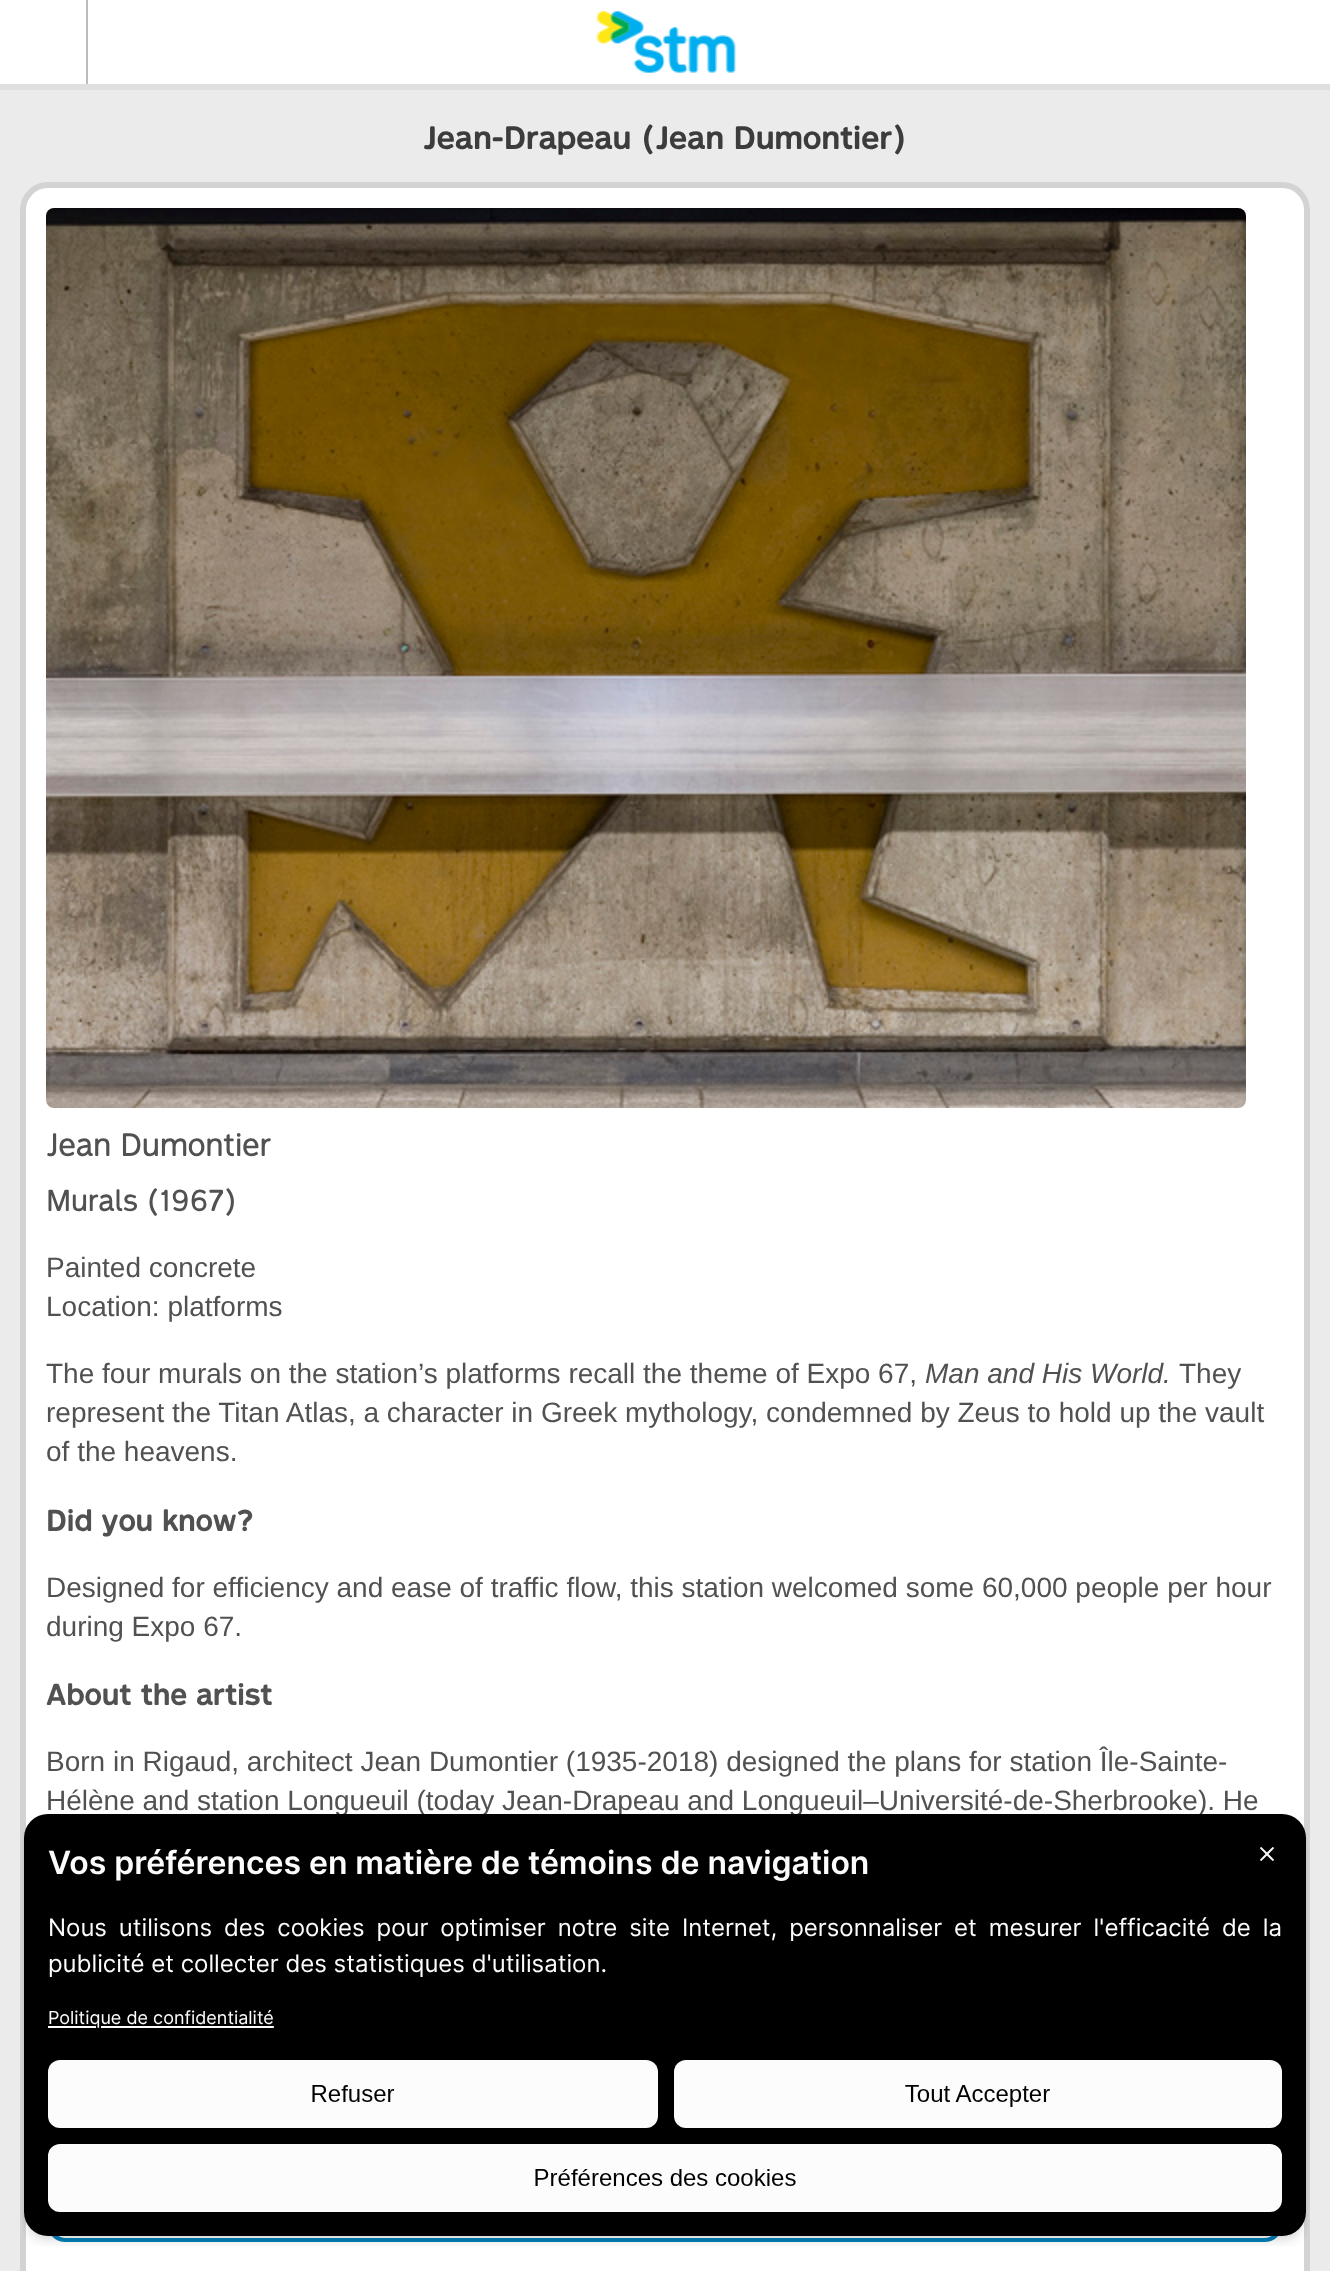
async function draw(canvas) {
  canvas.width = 1330;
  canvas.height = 2271;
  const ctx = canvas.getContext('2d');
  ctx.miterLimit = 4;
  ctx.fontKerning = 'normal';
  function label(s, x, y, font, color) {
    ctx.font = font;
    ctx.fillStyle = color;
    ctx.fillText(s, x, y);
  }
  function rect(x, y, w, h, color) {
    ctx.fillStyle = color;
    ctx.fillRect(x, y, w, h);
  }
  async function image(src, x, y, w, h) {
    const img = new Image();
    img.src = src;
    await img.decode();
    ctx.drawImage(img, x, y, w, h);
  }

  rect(0, 0, 1330, 2271, '#ebebeb');
  rect(0, 84, 1330, 6, '#dfdfdf');
  rect(0, 0, 1330, 84, '#fff');
  rect(86, 0, 2, 84, '#bcbcbc');
  await image('assets/img1.png', 596, 11, 140, 62);
  label('Jean-Drapeau (Jean Dumontier)', 423, 149, 'bold 30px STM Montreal', '#3c3c3c');
  ctx.fillStyle = '#fff';
  ctx.beginPath();
  ctx.roundRect(23, 185, 1284, 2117, 25);
  ctx.fill();
  ctx.strokeStyle = '#d3d3d3';
  ctx.lineWidth = 6;
  ctx.stroke();
  await image('assets/img2.png', 46, 208, 1200, 900);
  label('Jean Dumontier', 46, 1156, '30px STM Montreal', '#515151');
  label('Murals (1967)', 46, 1211, '28px STM Montreal', '#515151');
  label('Painted concrete', 46, 1277, '28px Liberation Sans', '#515151');
  label('Location: platforms', 46, 1316, '28px Liberation Sans', '#515151');
  label('The four murals on the station’s platforms recall the theme of Expo 67,', 46, 1383, '28px Liberation Sans', '#515151');
  label('Man and His World.', 925, 1383, 'italic 28px Liberation Sans', '#515151');
  label('They', 1179, 1383, '28px Liberation Sans', '#515151');
  label('represent the Titan Atlas, a character in Greek mythology, condemned by Zeus to hold up the vault', 46, 1422, '28px Liberation Sans', '#515151');
  label('of the heavens.', 46, 1461, '28px Liberation Sans', '#515151');
  label('Did you know?', 46, 1531, 'bold 28px STM Montreal', '#515151');
  label('Designed for efficiency and ease of traffic flow, this station welcomed some 60,000 people per hour', 46, 1597, '28px Liberation Sans', '#515151');
  label('during Expo 67.', 46, 1636, '28px Liberation Sans', '#515151');
  label('About the artist', 46, 1705, 'bold 28px STM Montreal', '#515151');
  label('Born in Rigaud, architect Jean Dumontier (1935-2018) designed the plans for station Île-Sainte-', 46, 1771, '28px Liberation Sans', '#515151');
  label('Hélène and station Longueuil (today Jean-Drapeau and Longueuil–Université-de-Sherbrooke). He', 46, 1810, '28px Liberation Sans', '#515151');
  ctx.beginPath();
  ctx.roundRect(48, 2098, 1234, 142, 18);
  ctx.strokeStyle = '#007eb6';
  ctx.lineWidth = 4;
  ctx.stroke();
  await image('assets/img3.png', 22, 1814, 1286, 432);
}

draw(document.querySelector('canvas'));
